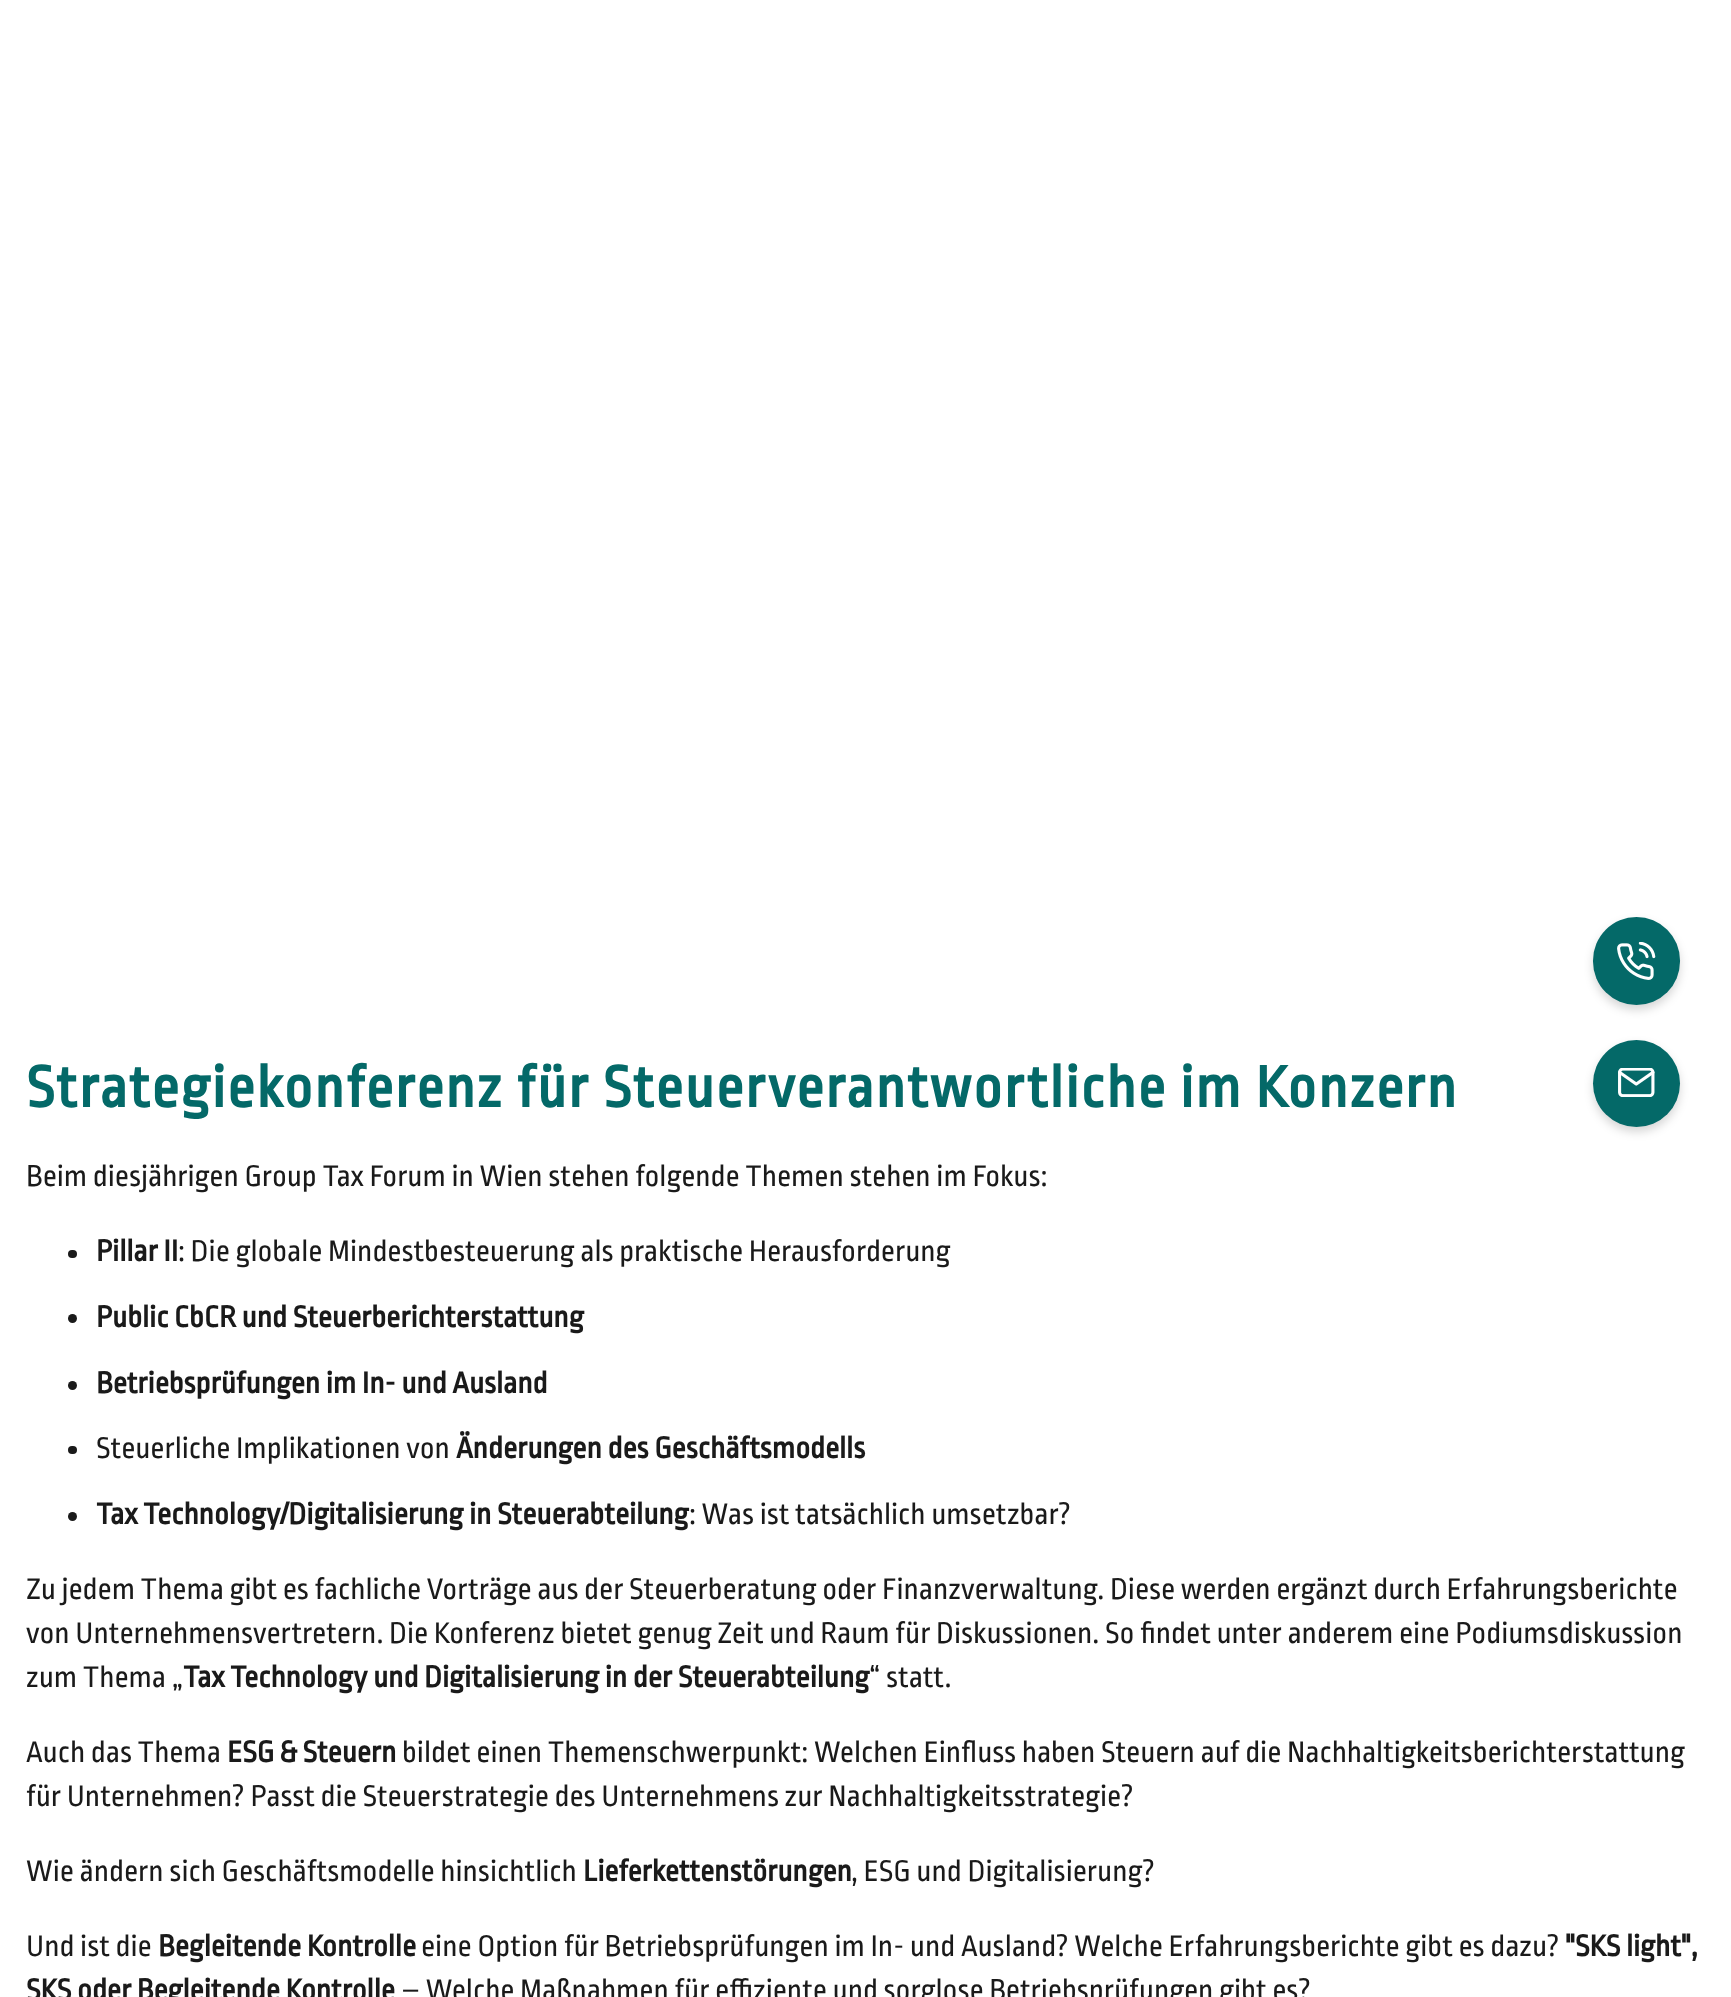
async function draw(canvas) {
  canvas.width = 1731;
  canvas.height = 1997;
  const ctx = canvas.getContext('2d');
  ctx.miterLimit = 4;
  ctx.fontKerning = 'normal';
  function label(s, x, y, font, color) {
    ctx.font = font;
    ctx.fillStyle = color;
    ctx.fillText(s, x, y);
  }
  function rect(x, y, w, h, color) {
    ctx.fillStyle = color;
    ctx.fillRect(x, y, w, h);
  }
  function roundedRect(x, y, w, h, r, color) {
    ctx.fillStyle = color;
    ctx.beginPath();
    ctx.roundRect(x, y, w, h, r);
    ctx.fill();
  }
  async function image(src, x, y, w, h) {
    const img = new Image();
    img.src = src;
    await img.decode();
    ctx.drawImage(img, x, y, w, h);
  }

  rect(0, 0, 1731, 1997, '#fff');
  ctx.fillStyle = '#00000029';
  ctx.filter = 'blur(5px)';
  ctx.beginPath();
  ctx.roundRect(1593, 922, 87, 88, 43.5);
  ctx.fill();
  ctx.filter = 'none';
  roundedRect(1593, 917, 87, 88, 43.5, '#046968');
  await image('assets/img1.png', 1617, 942, 39, 38);
  ctx.fillStyle = '#00000029';
  ctx.filter = 'blur(5px)';
  ctx.beginPath();
  ctx.roundRect(1593, 1045, 87, 87, 43.5);
  ctx.fill();
  ctx.filter = 'none';
  ctx.fillStyle = '#046968';
  ctx.beginPath();
  ctx.arc(1636.5, 1083.5, 43.5, 0, 2 * Math.PI);
  ctx.fill();
  await image('assets/img2.png', 1618, 1068, 37, 29);
  ctx.letterSpacing = '1.85px';
  label('Strategiekonferenz für Steuerverantwortliche im Konzern', 26, 1107, 'bold 61.25px Ropa Sans', '#046968');
  ctx.letterSpacing = '0px';
  label('Beim diesjährigen Group Tax Forum in Wien stehen folgende Themen stehen im Fokus:', 26, 1186, '31.5px Ropa Sans', '#1a1a1a');
  roundedRect(68, 1250, 9, 8, 4, '#1a1a1a');
  label('Pillar II', 96, 1261, 'bold 31.5px Ropa Sans', '#1a1a1a');
  label(': Die globale Mindestbesteuerung als praktische Herausforderung', 178, 1261, '31.5px Ropa Sans', '#1a1a1a');
  ctx.beginPath();
  ctx.arc(72.5, 1318.5, 4.5, 0, 2 * Math.PI);
  ctx.fill();
  label('Public CbCR und Steuerberichterstattung', 96, 1327, 'bold 31.5px Ropa Sans', '#1a1a1a');
  ctx.beginPath();
  ctx.arc(72.5, 1385.5, 4.5, 0, 2 * Math.PI);
  ctx.fill();
  label('Betriebsprüfungen im In- und Ausland', 96, 1393, 'bold 31.5px Ropa Sans', '#1a1a1a');
  roundedRect(68, 1446, 9, 8, 4, '#1a1a1a');
  label('Steuerliche Implikationen von', 96, 1458, '31.5px Ropa Sans', '#1a1a1a');
  label('Änderungen des Geschäftsmodells', 456, 1458, 'bold 31.5px Ropa Sans', '#1a1a1a');
  ctx.beginPath();
  ctx.arc(72.5, 1516.5, 4.5, 0, 2 * Math.PI);
  ctx.fill();
  label('Tax Technology/Digitalisierung in Steuerabteilung', 96, 1524, 'bold 31.5px Ropa Sans', '#1a1a1a');
  label(': Was ist tatsächlich umsetzbar?', 689, 1524, '31.5px Ropa Sans', '#1a1a1a');
  label('Zu jedem Thema gibt es fachliche Vorträge aus der Steuerberatung oder Finanzverwaltung. Diese werden ergänzt durch Erfahrungsberichte', 26, 1599, '31.5px Ropa Sans', '#1a1a1a');
  label('von Unternehmensvertretern. Die Konferenz bietet genug Zeit und Raum für Diskussionen. So findet unter anderem eine Podiumsdiskussion', 26, 1643, '31.5px Ropa Sans', '#1a1a1a');
  label('zum Thema „', 26, 1687, '31.5px Ropa Sans', '#1a1a1a');
  label('Tax Technology und Digitalisierung in der Steuerabteilung', 183, 1687, 'bold 31.5px Ropa Sans', '#1a1a1a');
  label('“ statt.', 869, 1687, '31.5px Ropa Sans', '#1a1a1a');
  label('Auch das Thema', 26, 1762, '31.5px Ropa Sans', '#1a1a1a');
  label('ESG & Steuern', 227, 1762, 'bold 31.5px Ropa Sans', '#1a1a1a');
  label('bildet einen Themenschwerpunkt: Welchen Einfluss haben Steuern auf die Nachhaltigkeitsberichterstattung', 402, 1762, '31.5px Ropa Sans', '#1a1a1a');
  label('für Unternehmen? Passt die Steuerstrategie des Unternehmens zur Nachhaltigkeitsstrategie?', 26, 1806, '31.5px Ropa Sans', '#1a1a1a');
  label('Wie ändern sich Geschäftsmodelle hinsichtlich', 26, 1881, '31.5px Ropa Sans', '#1a1a1a');
  label('Lieferkettenstörungen', 583, 1881, 'bold 31.5px Ropa Sans', '#1a1a1a');
  label(', ESG und Digitalisierung?', 851, 1881, '31.5px Ropa Sans', '#1a1a1a');
  label('Und ist die', 26, 1956, '31.5px Ropa Sans', '#1a1a1a');
  label('Begleitende Kontrolle', 158, 1956, 'bold 31.5px Ropa Sans', '#1a1a1a');
  label('eine Option für Betriebsprüfungen im In- und Ausland? Welche Erfahrungsberichte gibt es dazu?', 421, 1956, '31.5px Ropa Sans', '#1a1a1a');
  label('"SKS light",', 1565, 1956, 'bold 31.5px Ropa Sans', '#1a1a1a');
  label('SKS oder Begleitende Kontrolle', 26, 2000, 'bold 31.5px Ropa Sans', '#1a1a1a');
  label('– Welche Maßnahmen für effiziente und sorglose Betriebsprüfungen gibt es?', 401, 2000, '31.5px Ropa Sans', '#1a1a1a');
}

draw(document.querySelector('canvas'));
